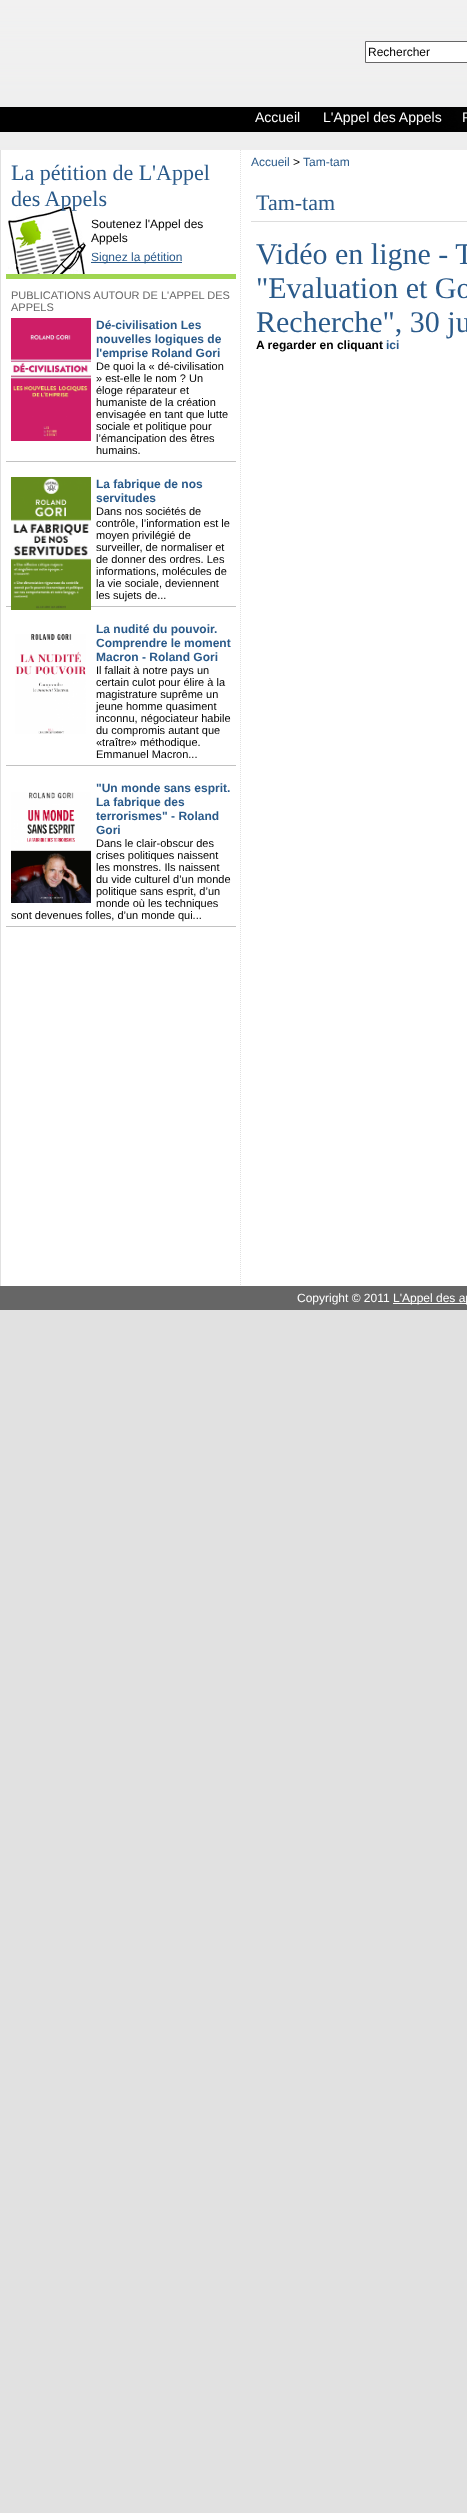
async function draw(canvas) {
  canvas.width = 467;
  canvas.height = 2513;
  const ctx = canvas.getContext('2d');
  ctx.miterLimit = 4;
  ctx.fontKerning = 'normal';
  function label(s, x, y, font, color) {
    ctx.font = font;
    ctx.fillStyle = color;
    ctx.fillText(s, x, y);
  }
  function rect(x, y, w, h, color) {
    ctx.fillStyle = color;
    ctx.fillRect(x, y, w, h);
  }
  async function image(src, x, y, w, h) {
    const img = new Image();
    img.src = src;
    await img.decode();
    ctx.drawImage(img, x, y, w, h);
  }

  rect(0, 0, 467, 2513, '#e1e1e1');
  await image('assets/img1.png', 0, 0, 467, 150);
  await image('assets/img2.png', 0, 107, 467, 25);
  ctx.fillStyle = '#fff';
  ctx.beginPath();
  ctx.rect(365.5, 41.5, 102, 21);
  ctx.fill();
  ctx.strokeStyle = '#666';
  ctx.stroke();
  label('Rechercher', 368, 56, '12px Liberation Sans', '#000');
  label('Accueil', 255, 122, '14px Liberation Sans', '#fff');
  label('L\'Appel des Appels', 323, 122, '14px Liberation Sans', '#fff');
  label('P', 462, 122, '14px Liberation Sans', '#fff');
  await image('assets/img3.png', 1, 150, 466, 1136);
  await image('assets/img4.png', 8, 206, 78, 68);
  rect(6, 274, 230, 5, '#a0d651');
  label('La pétition de L\'Appel', 11, 180, '22px Liberation Serif', '#2a5a8a');
  label('des Appels', 11, 206, '22px Liberation Serif', '#2a5a8a');
  label('Soutenez l\'Appel des', 91, 228, '12px Liberation Sans', '#000');
  label('Appels', 91, 242, '12px Liberation Sans', '#000');
  rect(91, 262, 91, 1, '#2a5a8a');
  label('Signez la pétition', 91, 261, '12px Liberation Sans', '#2a5a8a');
  label('PUBLICATIONS AUTOUR DE L\'APPEL DES', 11, 299, '11px Liberation Sans', '#666');
  label('APPELS', 11, 311, '11px Liberation Sans', '#666');
  rect(6, 461, 230, 1, '#c2c2c2');
  await image('assets/img5.png', 11, 318, 80, 123);
  label('Dé-civilisation Les', 96, 329, 'bold 12px Liberation Sans', '#2a5a8a');
  label('nouvelles logiques de', 96, 343, 'bold 12px Liberation Sans', '#2a5a8a');
  label('l\'emprise Roland Gori', 96, 357, 'bold 12px Liberation Sans', '#2a5a8a');
  label('De quoi la « dé-civilisation', 96, 370, '11px Liberation Sans', '#000');
  label('» est-elle le nom ? Un', 96, 382, '11px Liberation Sans', '#000');
  label('éloge réparateur et', 96, 394, '11px Liberation Sans', '#000');
  label('humaniste de la création', 96, 406, '11px Liberation Sans', '#000');
  label('envisagée en tant que lutte', 96, 418, '11px Liberation Sans', '#000');
  label('sociale et politique pour', 96, 430, '11px Liberation Sans', '#000');
  label('l’émancipation des êtres', 96, 442, '11px Liberation Sans', '#000');
  label('humains.', 96, 454, '11px Liberation Sans', '#000');
  rect(6, 606, 230, 1, '#c2c2c2');
  await image('assets/img6.png', 11, 477, 80, 133);
  label('La fabrique de nos', 96, 488, 'bold 12px Liberation Sans', '#2a5a8a');
  label('servitudes', 96, 502, 'bold 12px Liberation Sans', '#2a5a8a');
  label('Dans nos sociétés de', 96, 515, '11px Liberation Sans', '#000');
  label('contrôle, l’information est le', 96, 527, '11px Liberation Sans', '#000');
  label('moyen privilégié de', 96, 539, '11px Liberation Sans', '#000');
  label('surveiller, de normaliser et', 96, 551, '11px Liberation Sans', '#000');
  label('de donner des ordres. Les', 96, 563, '11px Liberation Sans', '#000');
  label('informations, molécules de', 96, 575, '11px Liberation Sans', '#000');
  label('la vie sociale, deviennent', 96, 587, '11px Liberation Sans', '#000');
  label('les sujets de...', 96, 599, '11px Liberation Sans', '#000');
  rect(6, 765, 230, 1, '#c2c2c2');
  await image('assets/img7.png', 15, 634, 71, 100);
  label('La nudité du pouvoir.', 96, 633, 'bold 12px Liberation Sans', '#2a5a8a');
  label('Comprendre le moment', 96, 647, 'bold 12px Liberation Sans', '#2a5a8a');
  label('Macron - Roland Gori', 96, 661, 'bold 12px Liberation Sans', '#2a5a8a');
  label('Il fallait à notre pays un', 96, 674, '11px Liberation Sans', '#000');
  label('certain culot pour élire à la', 96, 686, '11px Liberation Sans', '#000');
  label('magistrature suprême un', 96, 698, '11px Liberation Sans', '#000');
  label('jeune homme quasiment', 96, 710, '11px Liberation Sans', '#000');
  label('inconnu, négociateur habile', 96, 722, '11px Liberation Sans', '#000');
  label('du compromis autant que', 96, 734, '11px Liberation Sans', '#000');
  label('«traître» méthodique.', 96, 746, '11px Liberation Sans', '#000');
  label('Emmanuel Macron...', 96, 758, '11px Liberation Sans', '#000');
  rect(6, 926, 230, 1, '#c2c2c2');
  label('"Un monde sans esprit.', 96, 792, 'bold 12px Liberation Sans', '#2a5a8a');
  label('La fabrique des', 96, 806, 'bold 12px Liberation Sans', '#2a5a8a');
  label('terrorismes" - Roland', 96, 820, 'bold 12px Liberation Sans', '#2a5a8a');
  label('Gori', 96, 834, 'bold 12px Liberation Sans', '#2a5a8a');
  label('Dans le clair-obscur des', 96, 847, '11px Liberation Sans', '#000');
  label('crises politiques naissent', 96, 859, '11px Liberation Sans', '#000');
  label('les monstres. Ils naissent', 96, 871, '11px Liberation Sans', '#000');
  label('du vide culturel d’un monde', 96, 883, '11px Liberation Sans', '#000');
  label('politique sans esprit, d’un', 96, 895, '11px Liberation Sans', '#000');
  label('monde où les techniques', 96, 907, '11px Liberation Sans', '#000');
  label('sont devenues folles, d’un monde qui...', 11, 919, '11px Liberation Sans', '#000');
  await image('assets/img8.png', 11, 792, 80, 111);
  label('Accueil', 251, 166, '12px Liberation Sans', '#2a5a8a');
  label('>', 293, 166, '12px Liberation Sans', '#000');
  label('Tam-tam', 303, 166, '12px Liberation Sans', '#2a5a8a');
  rect(251, 221, 216, 1, '#ddd');
  label('Tam-tam', 256, 210, '22px Liberation Serif', '#2a5a8a');
  label('Vidéo en ligne - T', 256, 264, '30px Liberation Serif', '#2a5a8a');
  label('"Evaluation et Go', 256, 298, '30px Liberation Serif', '#2a5a8a');
  label('Recherche", 30 ju', 256, 332, '30px Liberation Serif', '#2a5a8a');
  label('A regarder en cliquant', 256, 349, 'bold 12px Liberation Sans', '#000');
  label('ici', 386, 349, 'bold 12px Liberation Sans', '#2a5a8a');
  rect(0, 1286, 467, 24, '#666');
  label('Copyright © 2011', 297, 1302, '12px Liberation Sans', '#fff');
  rect(393, 1303, 74, 1, '#fff');
  label('L\'Appel des ap', 393, 1302, '12px Liberation Sans', '#fff');
}

draw(document.querySelector('canvas'));
